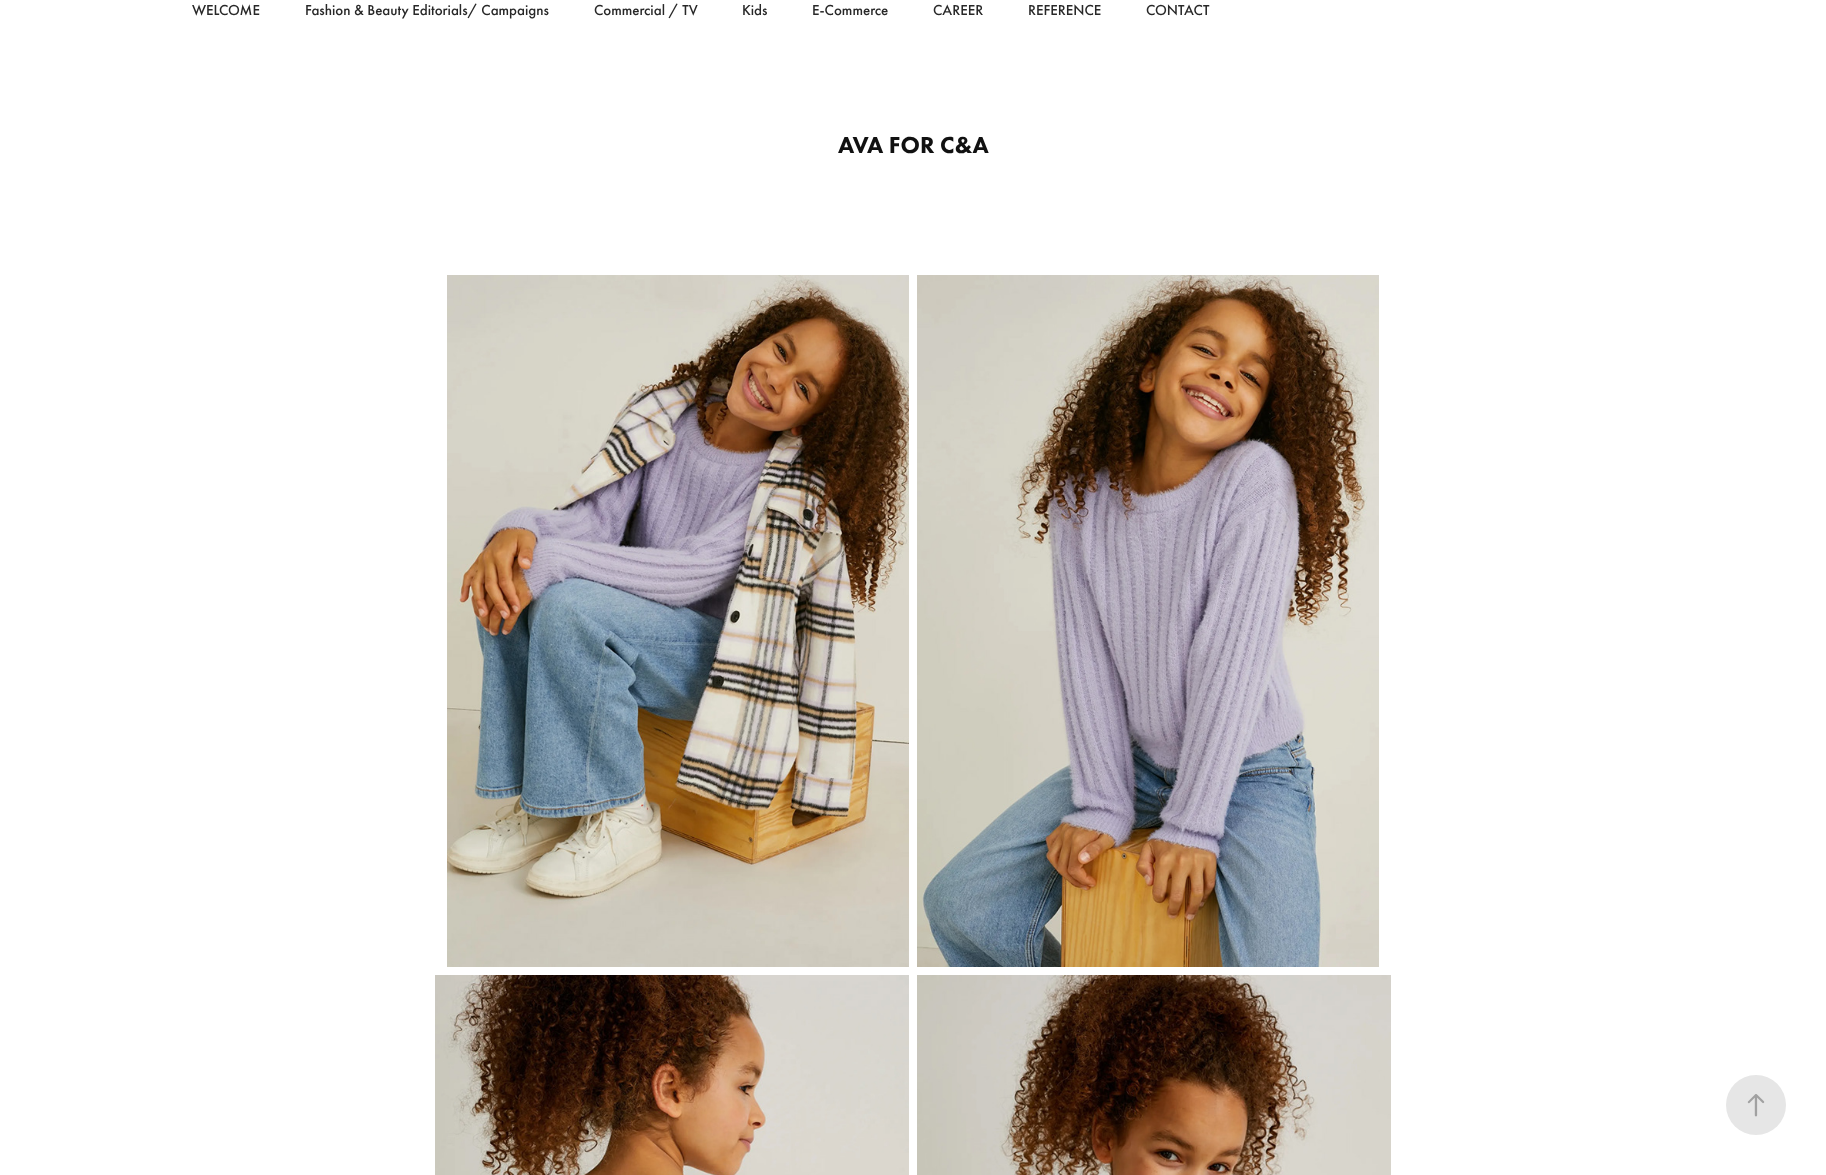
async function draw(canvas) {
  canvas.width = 1826;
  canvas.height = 1175;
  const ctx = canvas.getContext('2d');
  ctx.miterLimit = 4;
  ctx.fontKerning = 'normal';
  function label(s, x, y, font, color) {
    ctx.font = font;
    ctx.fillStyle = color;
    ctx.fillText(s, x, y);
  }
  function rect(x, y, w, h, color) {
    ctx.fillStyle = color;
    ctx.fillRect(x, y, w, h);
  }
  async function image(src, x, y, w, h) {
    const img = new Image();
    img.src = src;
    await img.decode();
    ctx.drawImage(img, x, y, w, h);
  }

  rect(0, 0, 1826, 1175, '#fff');
  label('WELCOME', 192, 15, '500 15px Futura PT', '#282828');
  label('Fashion & Beauty Editorials/ Campaigns', 305, 15, '500 15px Futura PT', '#282828');
  label('Commercial / TV', 594, 15, '500 15px Futura PT', '#282828');
  label('Kids', 742, 15, '500 15px Futura PT', '#282828');
  label('E-Commerce', 812, 15, '500 15px Futura PT', '#282828');
  label('CAREER', 933, 15, '500 15px Futura PT', '#282828');
  label('REFERENCE', 1028, 15, '500 15px Futura PT', '#282828');
  label('CONTACT', 1146, 15, '500 15px Futura PT', '#282828');
  label('AVA FOR C&A', 838, 153, '900 24px Futura PT', '#111');
  await image('assets/img1.png', 447, 275, 462, 692);
  await image('assets/img2.png', 917, 275, 462, 692);
  await image('assets/img3.png', 435, 975, 474, 200);
  await image('assets/img4.png', 917, 975, 474, 200);
  ctx.fillStyle = '#e6e6e6';
  ctx.beginPath();
  ctx.arc(1756, 1105, 30, 0, 2 * Math.PI);
  ctx.fill();
  await image('assets/img5.png', 1747, 1094, 18, 23);
}

draw(document.querySelector('canvas'));
